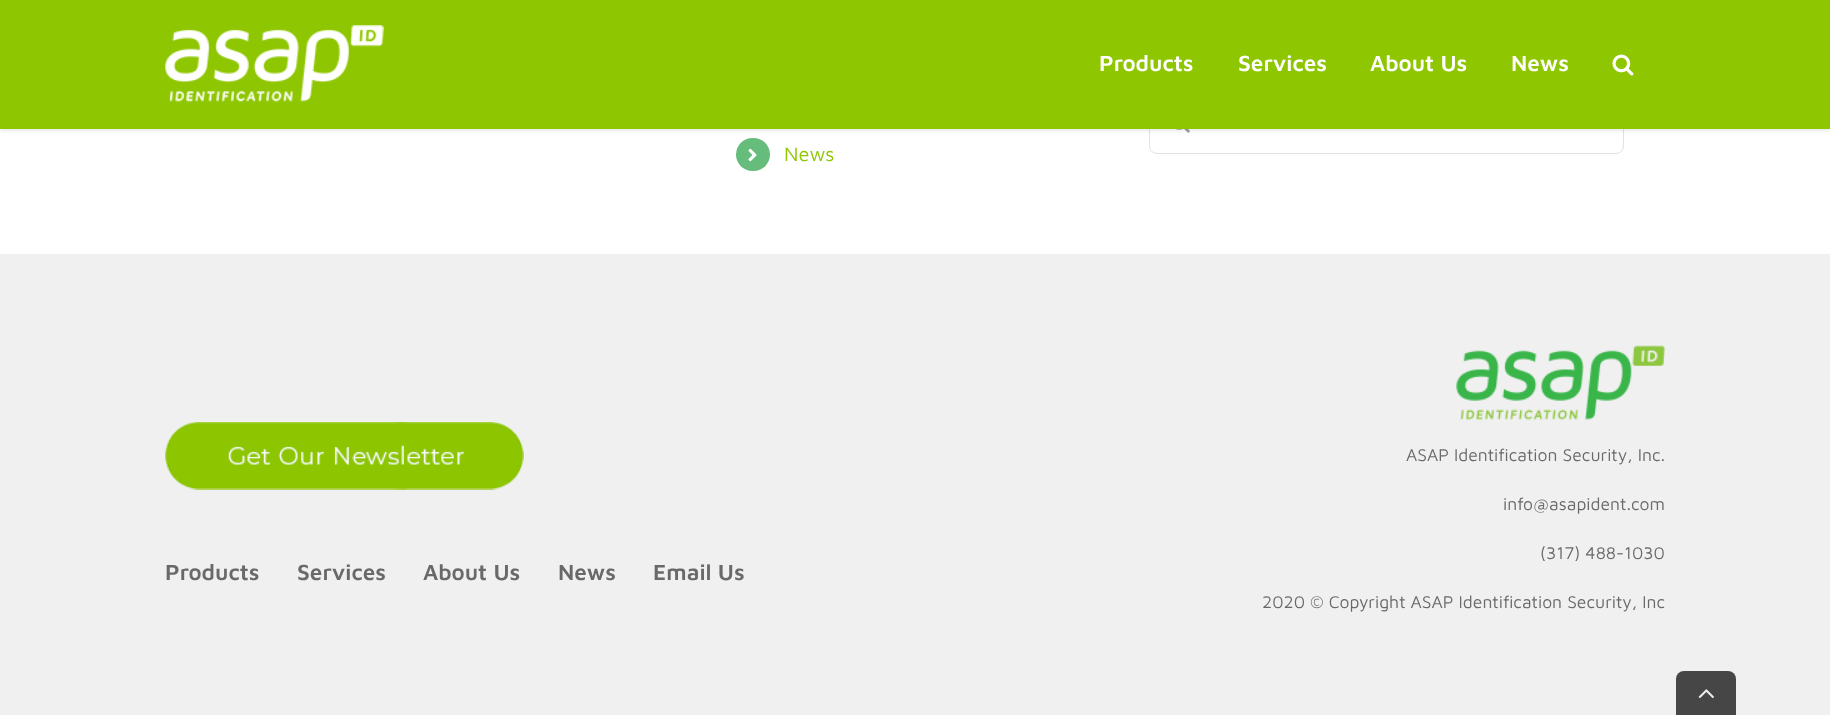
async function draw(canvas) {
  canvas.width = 1830;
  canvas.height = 715;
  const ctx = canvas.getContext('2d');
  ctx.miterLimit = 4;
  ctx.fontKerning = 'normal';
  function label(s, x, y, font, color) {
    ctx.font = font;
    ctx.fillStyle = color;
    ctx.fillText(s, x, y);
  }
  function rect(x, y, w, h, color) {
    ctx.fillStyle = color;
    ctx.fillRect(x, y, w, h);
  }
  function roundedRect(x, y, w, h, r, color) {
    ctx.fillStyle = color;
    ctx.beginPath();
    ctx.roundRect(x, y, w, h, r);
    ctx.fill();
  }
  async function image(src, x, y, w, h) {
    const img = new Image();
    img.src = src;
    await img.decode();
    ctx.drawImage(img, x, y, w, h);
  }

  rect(0, 0, 1830, 715, '#fff');
  ctx.beginPath();
  ctx.roundRect(1149.5, 91.5, 474, 62, 7.5);
  ctx.strokeStyle = '#e2e2e2';
  ctx.stroke();
  await image('assets/img4.png', 1175, 129, 15, 4);
  ctx.fillStyle = '#0000001f';
  ctx.filter = 'blur(2px)';
  ctx.beginPath();
  ctx.rect(0, 1, 1830, 129);
  ctx.fill();
  ctx.filter = 'none';
  rect(0, 0, 1830, 129, '#8ec601');
  await image('assets/img1.png', 165, 25, 219, 77);
  label('Products', 1099, 71, '600 22.5px Maven Pro', '#fff');
  label('Services', 1238, 71, '600 22.5px Maven Pro', '#fff');
  label('About Us', 1370, 71, '600 22.5px Maven Pro', '#fff');
  label('News', 1511, 71, '600 22.5px Maven Pro', '#fff');
  await image('assets/img2.png', 1612, 54, 22, 22);
  roundedRect(736, 138, 34, 33, 16.5, '#65bc7b');
  await image('assets/img3.png', 748, 148, 9, 14);
  label('News', 784, 161, '20px Maven Pro', '#8ec601');
  rect(0, 254, 1830, 461, '#f0f0f0');
  await image('assets/img5.png', 165, 422, 359, 68);
  label('Products', 165, 580, '600 22.5px Maven Pro', '#696969');
  label('Services', 297, 580, '600 22.5px Maven Pro', '#696969');
  label('About Us', 423, 580, '600 22.5px Maven Pro', '#696969');
  label('News', 558, 580, '600 22.5px Maven Pro', '#696969');
  label('Email Us', 653, 580, '600 22.5px Maven Pro', '#696969');
  await image('assets/img6.png', 1456, 345, 209, 75);
  label('ASAP Identification Security, Inc.', 1406, 461, '17.5px Maven Pro', '#696969');
  label('info@asapident.com', 1503, 510, '17.5px Maven Pro', '#696969');
  label('(317) 488-1030', 1540, 559, '17.5px Maven Pro', '#696969');
  label('2020 © Copyright ASAP Identification Security, Inc', 1262, 608, '17.5px Maven Pro', '#696969');
  ctx.fillStyle = '#464646';
  ctx.beginPath();
  ctx.roundRect(1676, 671, 60, 44, [8, 8, 0, 0]);
  ctx.fill();
  await image('assets/img7.png', 1698, 689, 16, 10);
}

draw(document.querySelector('canvas'));
